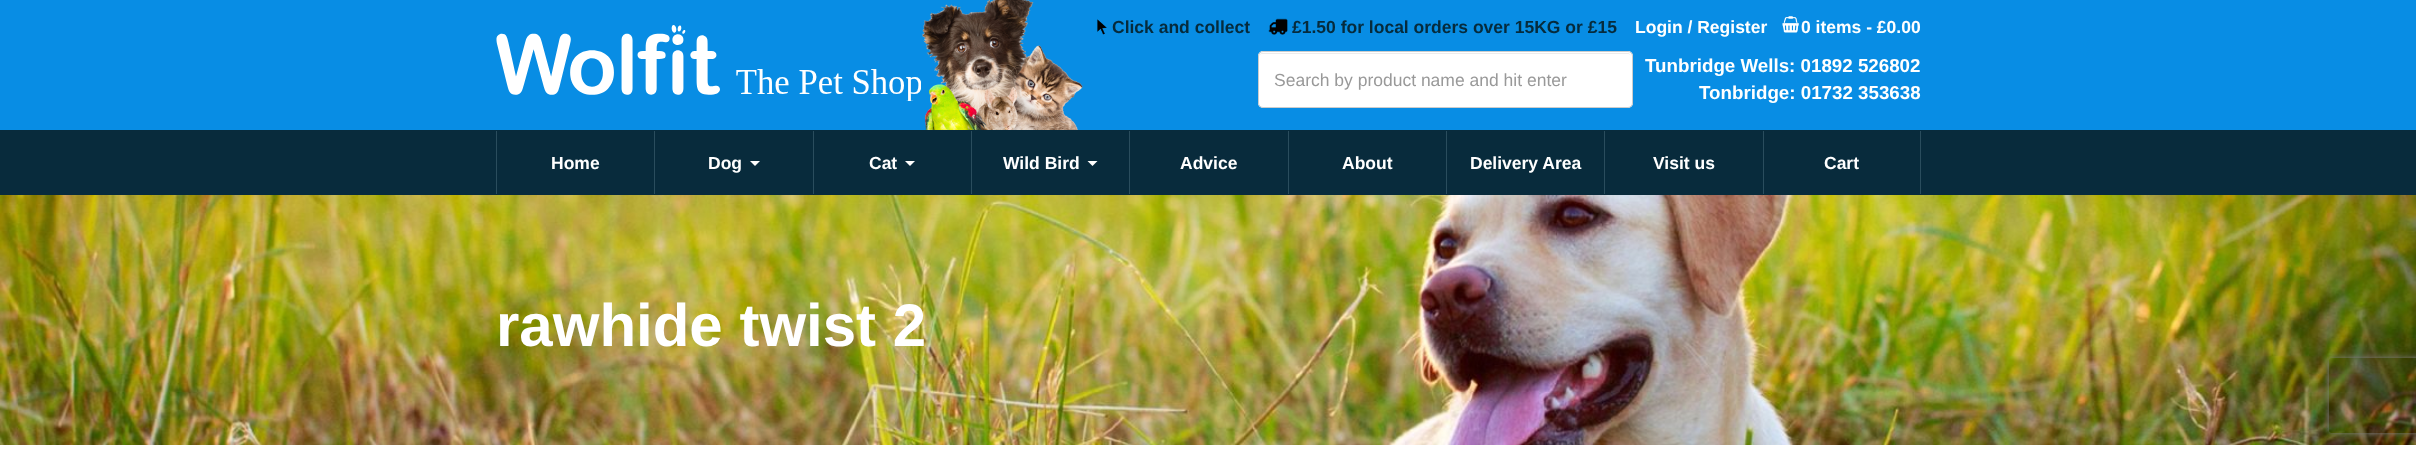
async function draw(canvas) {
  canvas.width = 2416;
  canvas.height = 449;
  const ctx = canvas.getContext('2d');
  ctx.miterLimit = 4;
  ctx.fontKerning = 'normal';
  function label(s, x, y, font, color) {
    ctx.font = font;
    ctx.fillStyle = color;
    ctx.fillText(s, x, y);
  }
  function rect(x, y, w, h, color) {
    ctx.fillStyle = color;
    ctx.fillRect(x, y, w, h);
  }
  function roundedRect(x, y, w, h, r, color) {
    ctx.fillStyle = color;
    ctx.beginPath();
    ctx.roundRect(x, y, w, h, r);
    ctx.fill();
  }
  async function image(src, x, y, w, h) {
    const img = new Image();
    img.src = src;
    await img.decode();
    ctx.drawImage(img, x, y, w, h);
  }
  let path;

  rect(0, 0, 2416, 449, '#fff');
  rect(0, 0, 2416, 130, '#088de4');
  await image('assets/img1.png', 496, 25, 425, 76);
  await image('assets/img2.png', 922, 0, 161, 130);
  await image('assets/img3.png', 1097, 19, 10, 16);
  label('Click and collect', 1112, 33, 'bold 17.5px Liberation Sans', '#062b3c');
  await image('assets/img4.png', 1268, 18, 20, 17);
  label('£1.50 for local orders over 15KG or £15', 1292, 33, 'bold 17.5px Liberation Sans', '#062b3c');
  label('Login / Register', 1635, 33, 'bold 17.5px Liberation Sans', '#fff');
  await image('assets/img5.png', 1782, 16, 17, 17);
  label('0 items - £0.00', 1801, 33, 'bold 17.5px Liberation Sans', '#fff');
  roundedRect(1258, 51, 375, 57, 5, '#fff');
  ctx.fillStyle = '#ececec';
  path = new Path2D('M1262 54H1628C1630 54 1631 55 1631 58C1631 55 1630 53 1627 53H1263C1260 53 1259 55 1259 58C1259 55 1260 54 1262 54Z');
  ctx.fill(path);
  ctx.beginPath();
  ctx.roundRect(1258.5, 51.5, 374, 56, 4.5);
  ctx.strokeStyle = '#ccc';
  ctx.stroke();
  label('Search by product name and hit enter', 1274, 86, '17.5px Liberation Sans', '#999');
  label('Tunbridge Wells: 01892 526802', 1645, 72, 'bold 18.75px Liberation Sans', '#fff');
  label('Tonbridge: 01732 353638', 1699, 99, 'bold 18.75px Liberation Sans', '#fff');
  rect(0, 130, 2416, 65, '#082b3c');
  rect(496, 131, 1, 63, '#2a4d5d');
  label('Home', 551, 169, 'bold 17.5px Liberation Sans', '#fff');
  rect(654, 131, 1, 63, '#2a4d5d');
  label('Dog', 708, 169, 'bold 17.5px Liberation Sans', '#fff');
  path = new Path2D('M750 161H760L755 166Z');
  ctx.fill(path);
  rect(813, 131, 1, 63, '#2a4d5d');
  label('Cat', 869, 169, 'bold 17.5px Liberation Sans', '#fff');
  path = new Path2D('M905 161H915L910 166Z');
  ctx.fill(path);
  rect(971, 131, 1, 63, '#2a4d5d');
  label('Wild Bird', 1003, 169, 'bold 17.5px Liberation Sans', '#fff');
  path = new Path2D('M1087.5 161H1097.5L1092.5 166Z');
  ctx.fill(path);
  rect(1129, 131, 1, 63, '#2a4d5d');
  label('Advice', 1180, 169, 'bold 17.5px Liberation Sans', '#fff');
  rect(1288, 131, 1, 63, '#2a4d5d');
  label('About', 1342, 169, 'bold 17.5px Liberation Sans', '#fff');
  rect(1446, 131, 1, 63, '#2a4d5d');
  label('Delivery Area', 1470, 169, 'bold 17.5px Liberation Sans', '#fff');
  rect(1604, 131, 1, 63, '#2a4d5d');
  label('Visit us', 1653, 169, 'bold 17.5px Liberation Sans', '#fff');
  rect(1920, 131, 1, 63, '#2a4d5d');
  rect(1763, 131, 1, 63, '#2a4d5d');
  label('Cart', 1824, 169, 'bold 17.5px Liberation Sans', '#fff');
  await image('assets/img6.png', 0, 195, 2416, 250);
  label('rawhide twist 2', 496, 346, 'bold 60px Liberation Sans', '#fff');
  ctx.save();
  path = new Path2D('M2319 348H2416V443H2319ZM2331.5 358H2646.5C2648 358 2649 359 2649 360.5V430.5C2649 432 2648 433 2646.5 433H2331.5C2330 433 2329 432 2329 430.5V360.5C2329 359 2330 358 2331.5 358Z');
  ctx.clip(path, 'evenodd');
  ctx.fillStyle = '#808080';
  ctx.filter = 'blur(3px)';
  ctx.beginPath();
  ctx.roundRect(2329, 358, 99, 75, 2.5);
  ctx.fill();
  ctx.filter = 'none';
  ctx.restore();
}

draw(document.querySelector('canvas'));
